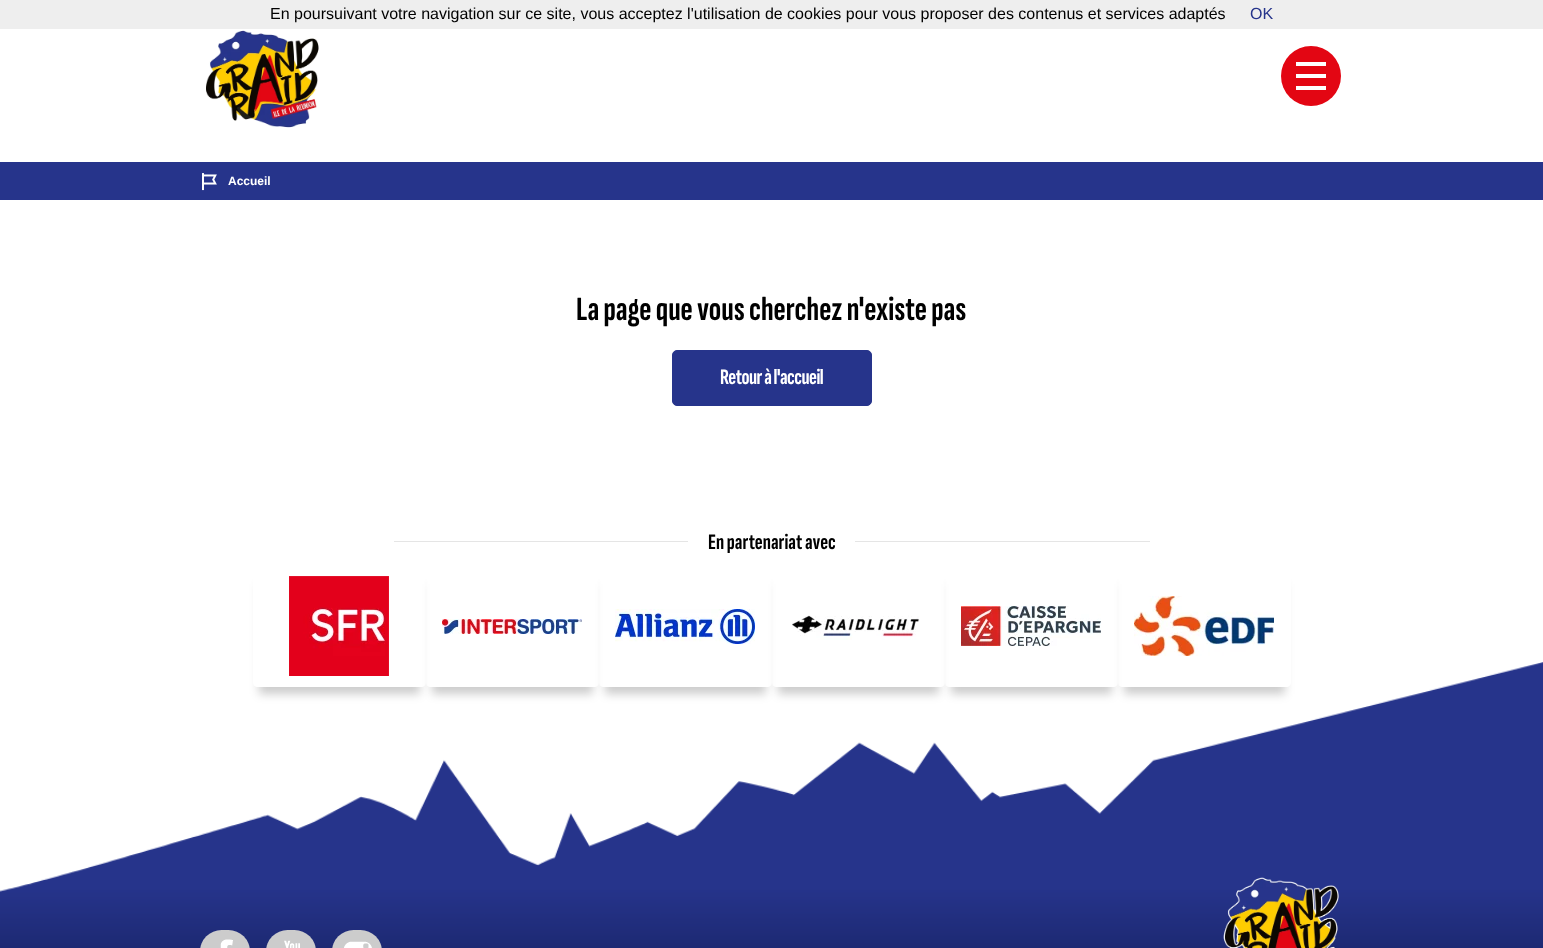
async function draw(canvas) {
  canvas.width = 1543;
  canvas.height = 948;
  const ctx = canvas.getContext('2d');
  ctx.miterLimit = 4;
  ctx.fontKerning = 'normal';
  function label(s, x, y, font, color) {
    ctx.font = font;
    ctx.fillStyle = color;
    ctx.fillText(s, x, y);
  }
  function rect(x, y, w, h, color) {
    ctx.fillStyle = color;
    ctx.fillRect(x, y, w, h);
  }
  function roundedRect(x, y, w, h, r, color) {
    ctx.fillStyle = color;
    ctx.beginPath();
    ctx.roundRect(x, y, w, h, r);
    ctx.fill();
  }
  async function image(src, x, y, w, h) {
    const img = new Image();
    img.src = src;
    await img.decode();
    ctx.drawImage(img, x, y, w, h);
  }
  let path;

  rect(0, 0, 1543, 948, '#fff');
  rect(0, 0, 1543, 29, '#eee');
  label('En poursuivant votre navigation sur ce site, vous acceptez l\'utilisation de cookies pour vous proposer des contenus et services adaptés', 270, 19, '16px Liberation Sans', '#000');
  label('OK', 1250, 19, '16px Liberation Sans', '#26348b');
  await image('assets/img1.png', 206, 30, 113, 98);
  ctx.fillStyle = '#e30613';
  ctx.beginPath();
  ctx.arc(1311, 76, 30, 0, 2 * Math.PI);
  ctx.fill();
  rect(1296, 62, 30, 4, '#fff');
  rect(1296, 74, 30, 4, '#fff');
  rect(1296, 86, 30, 4, '#fff');
  rect(0, 162, 1543, 38, '#26348b');
  await image('assets/img2.png', 202, 173, 15, 18);
  label('Accueil', 228, 185, 'bold 12px Liberation Sans', '#fff');
  label('La page que vous cherchez n\'existe pas', 576, 320, 'bold 34px Sofia Sans Extra Condensed', '#000');
  ctx.fillStyle = '#26348b';
  ctx.beginPath();
  ctx.roundRect(672.5, 350.5, 199, 55, 4.5);
  ctx.fill();
  ctx.strokeStyle = '#26348b';
  ctx.stroke();
  ctx.letterSpacing = '-0.5px';
  label('Retour à l\'accueil', 720, 384, 'bold 22px Sofia Sans Extra Condensed', '#fff');
  rect(394, 541, 756, 1, '#e5e5e5');
  rect(688, 541, 167, 1, '#fff');
  ctx.letterSpacing = '0px';
  label('En partenariat avec', 708, 549, 'bold 22px Sofia Sans Extra Condensed', '#000');
  await image('assets/img9.png', 0, 662, 1543, 286);
  ctx.save();
  path = new Path2D('M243 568H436V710H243ZM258 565H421C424 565 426 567 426 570V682C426 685 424 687 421 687H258C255 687 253 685 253 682V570C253 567 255 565 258 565Z');
  ctx.clip(path, 'evenodd');
  ctx.fillStyle = '#00000033';
  ctx.filter = 'blur(5px)';
  ctx.beginPath();
  ctx.rect(259, 584, 161, 110);
  ctx.fill();
  ctx.filter = 'none';
  ctx.restore();
  await image('assets/img3.png', 289, 576, 100, 100);
  ctx.save();
  path = new Path2D('M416 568H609V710H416ZM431 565H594C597 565 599 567 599 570V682C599 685 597 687 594 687H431C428 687 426 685 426 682V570C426 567 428 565 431 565Z');
  ctx.clip(path, 'evenodd');
  ctx.fillStyle = '#00000033';
  ctx.filter = 'blur(5px)';
  ctx.beginPath();
  ctx.rect(432, 584, 161, 110);
  ctx.fill();
  ctx.filter = 'none';
  ctx.restore();
  await image('assets/img4.png', 442, 619, 140, 15);
  ctx.save();
  path = new Path2D('M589 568H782V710H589ZM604 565H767C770 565 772 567 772 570V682C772 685 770 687 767 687H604C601 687 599 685 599 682V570C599 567 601 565 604 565Z');
  ctx.clip(path, 'evenodd');
  ctx.fillStyle = '#00000033';
  ctx.filter = 'blur(5px)';
  ctx.beginPath();
  ctx.rect(605, 584, 161, 110);
  ctx.fill();
  ctx.filter = 'none';
  ctx.restore();
  await image('assets/img5.png', 615, 609, 140, 35);
  ctx.save();
  path = new Path2D('M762 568H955V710H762ZM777 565H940C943 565 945 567 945 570V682C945 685 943 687 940 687H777C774 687 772 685 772 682V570C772 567 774 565 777 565Z');
  ctx.clip(path, 'evenodd');
  ctx.fillStyle = '#00000033';
  ctx.filter = 'blur(5px)';
  ctx.beginPath();
  ctx.rect(778, 584, 161, 110);
  ctx.fill();
  ctx.filter = 'none';
  ctx.restore();
  await image('assets/img6.png', 792, 615, 128, 25);
  ctx.save();
  path = new Path2D('M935 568H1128V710H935ZM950 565H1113C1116 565 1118 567 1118 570V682C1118 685 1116 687 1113 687H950C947 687 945 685 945 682V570C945 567 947 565 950 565Z');
  ctx.clip(path, 'evenodd');
  ctx.fillStyle = '#00000033';
  ctx.filter = 'blur(5px)';
  ctx.beginPath();
  ctx.rect(951, 584, 161, 110);
  ctx.fill();
  ctx.filter = 'none';
  ctx.restore();
  await image('assets/img7.png', 961, 606, 140, 40);
  ctx.save();
  path = new Path2D('M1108 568H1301V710H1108ZM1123 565H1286C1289 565 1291 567 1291 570V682C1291 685 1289 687 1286 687H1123C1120 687 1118 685 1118 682V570C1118 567 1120 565 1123 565Z');
  ctx.clip(path, 'evenodd');
  ctx.fillStyle = '#00000033';
  ctx.filter = 'blur(5px)';
  ctx.beginPath();
  ctx.rect(1124, 584, 161, 110);
  ctx.fill();
  ctx.filter = 'none';
  ctx.restore();
  await image('assets/img8.png', 1134, 596, 140, 60);
  roundedRect(200, 930, 50, 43, 25, '#ccc');
  await image('assets/img10.png', 220, 939, 13, 9);
  roundedRect(266, 930, 50, 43, 25, '#ccc');
  await image('assets/img11.png', 284, 940, 16, 8);
  roundedRect(332, 930, 50, 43, 25, '#ccc');
  await image('assets/img12.png', 344, 941, 28, 7);
  await image('assets/img13.png', 1223, 877, 116, 71);
}

draw(document.querySelector('canvas'));
